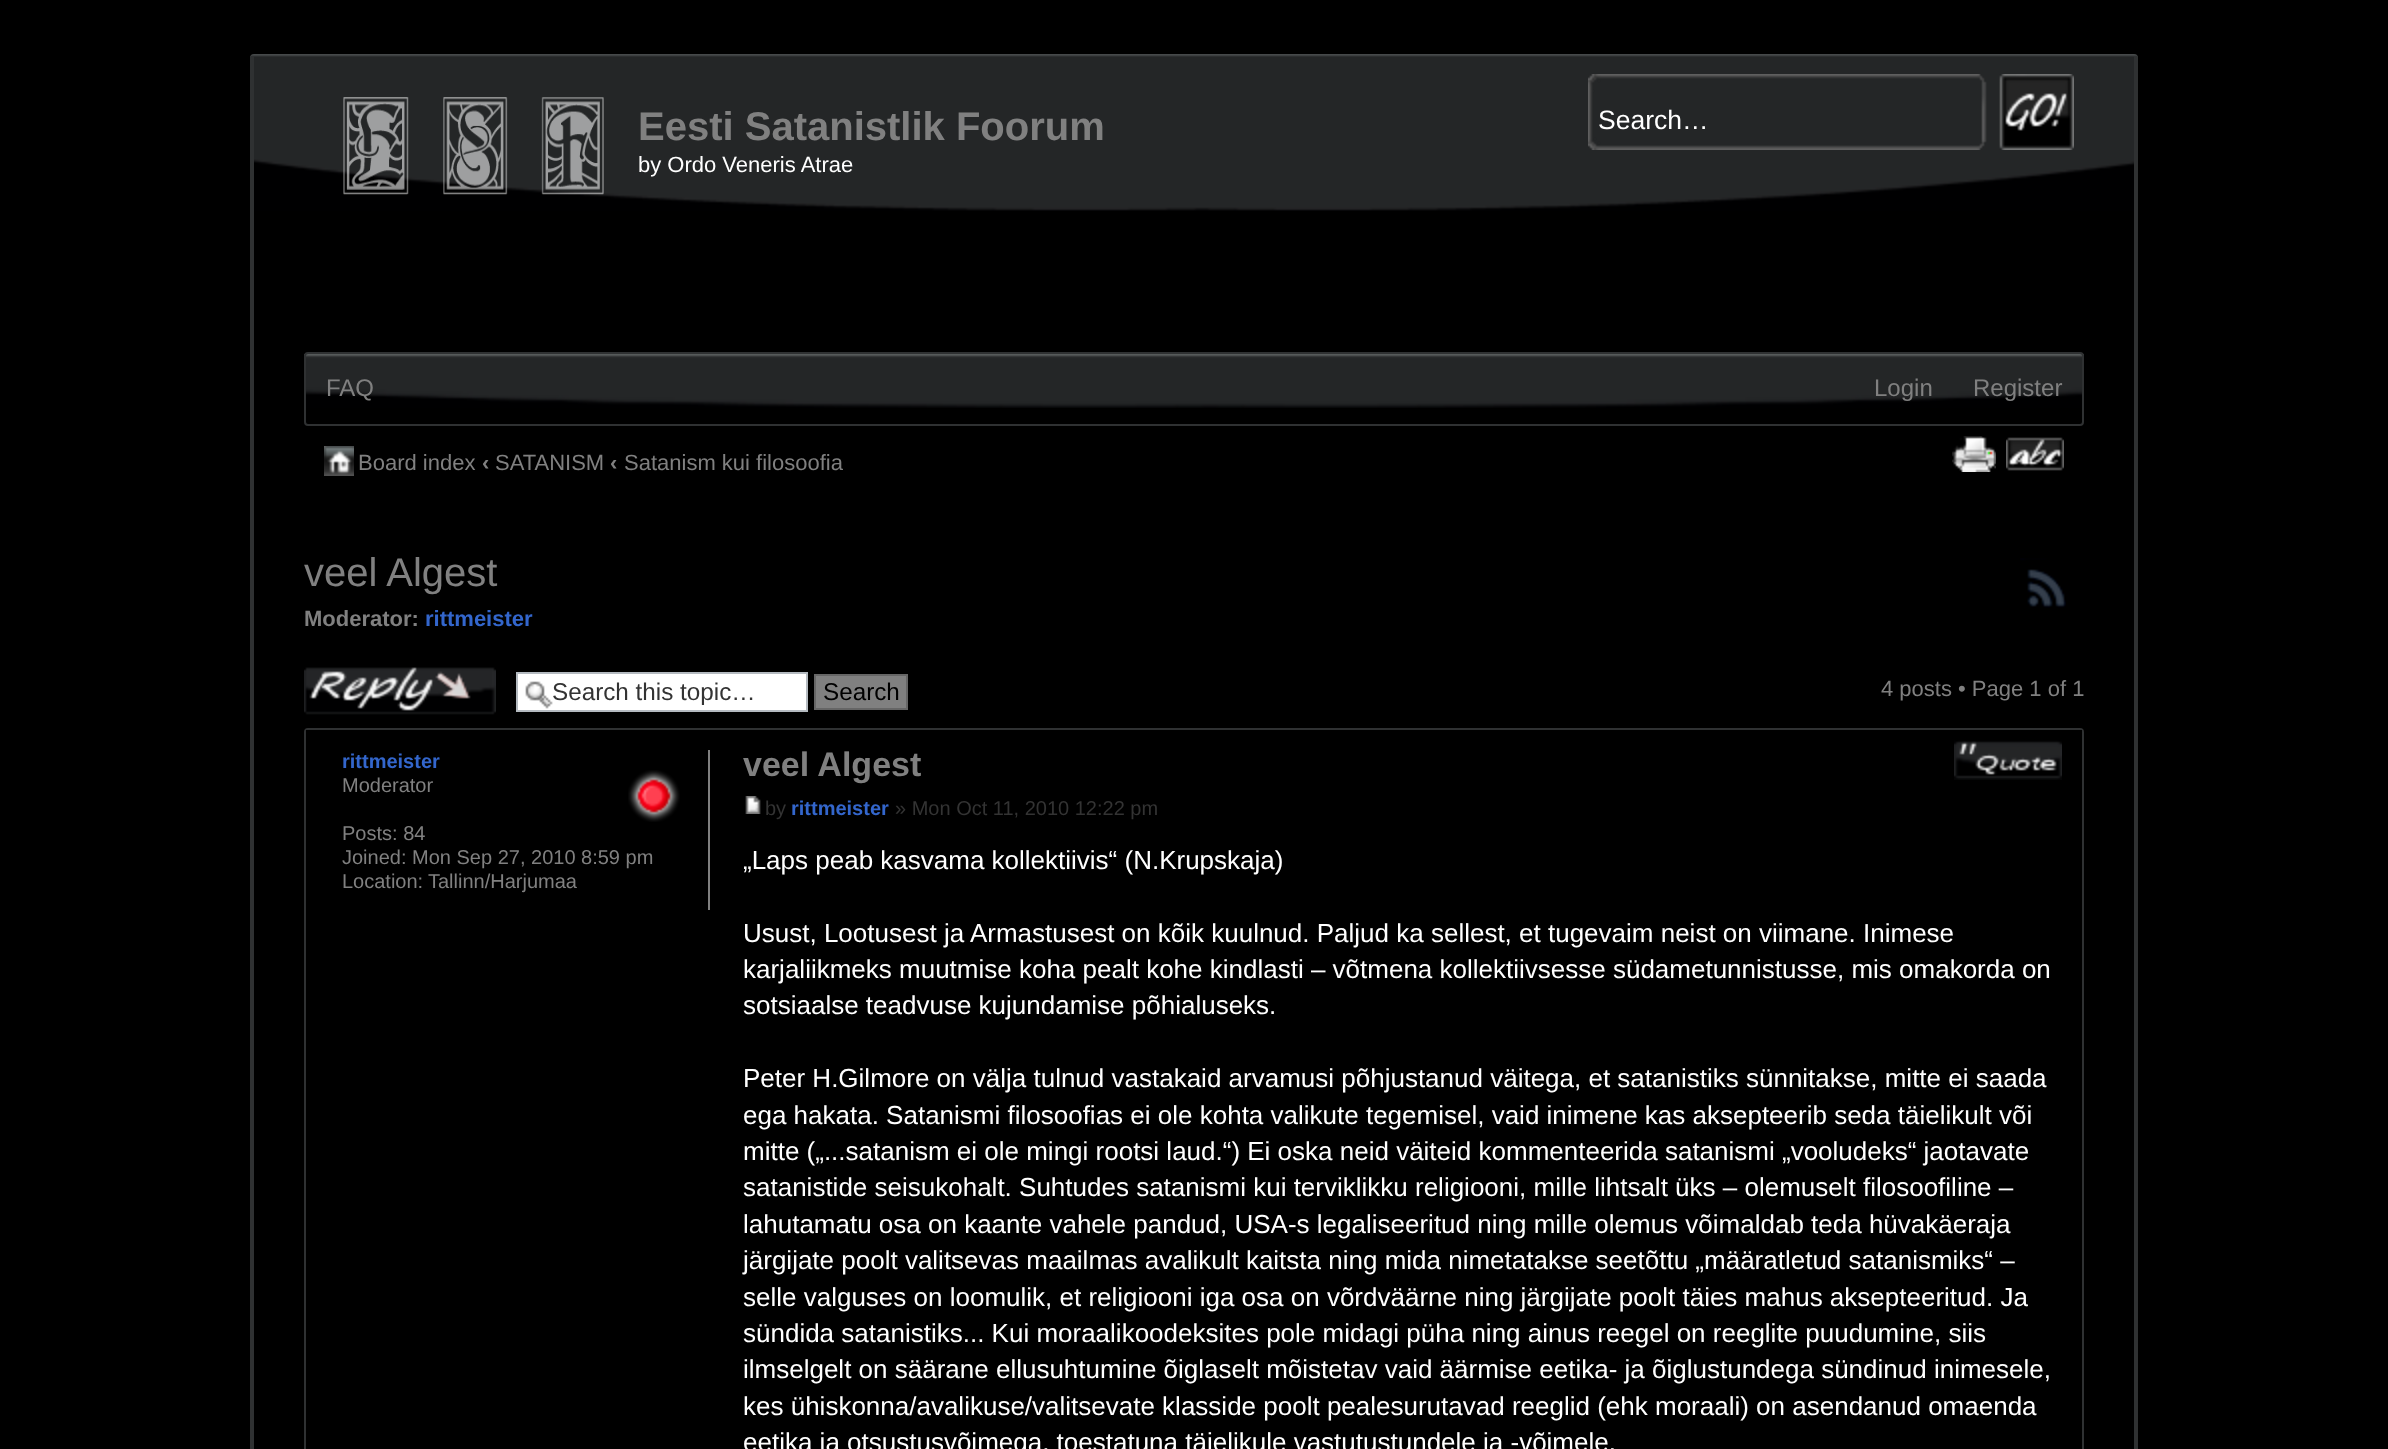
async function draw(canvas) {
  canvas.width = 2388;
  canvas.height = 1449;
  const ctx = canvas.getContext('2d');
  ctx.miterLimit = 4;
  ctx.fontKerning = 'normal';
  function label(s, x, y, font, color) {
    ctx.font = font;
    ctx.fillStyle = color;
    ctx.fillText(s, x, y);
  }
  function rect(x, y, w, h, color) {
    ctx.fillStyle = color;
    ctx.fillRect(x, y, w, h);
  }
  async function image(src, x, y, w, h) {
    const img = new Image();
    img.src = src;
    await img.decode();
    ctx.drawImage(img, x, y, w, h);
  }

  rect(0, 0, 2388, 1449, '#000');
  await image('assets/img1.png', 250, 54, 1888, 157);
  rect(2134, 56, 4, 1393, '#2f3132');
  rect(250, 56, 4, 1393, '#2f3132');
  await image('assets/img2.png', 343, 97, 261, 98);
  label('Eesti Satanistlik Foorum', 638, 140, 'bold 40px Liberation Sans', '#808080');
  label('by Ordo Veneris Atrae', 638, 172, '22px Liberation Sans', '#fff');
  await image('assets/img3.png', 1588, 74, 399, 76);
  label('Search…', 1598, 129, '26.5px Liberation Sans', '#fff');
  await image('assets/img4.png', 1999, 74, 75, 76);
  await image('assets/img5.png', 304, 354, 1780, 54);
  ctx.beginPath();
  ctx.roundRect(305, 353, 1778, 72, 3);
  ctx.strokeStyle = '#2f3132';
  ctx.lineWidth = 2;
  ctx.stroke();
  label('FAQ', 326, 396, '24px Liberation Sans', '#808080');
  label('Login', 1874, 396, '24px Liberation Sans', '#808080');
  label('Register', 1973, 396, '24px Liberation Sans', '#808080');
  await image('assets/img6.png', 324, 446, 30, 30);
  label('Board index', 358, 470, '22px Liberation Sans', '#808080');
  label('‹', 482, 470, 'bold 22px Liberation Sans', '#808080');
  label('SATANISM', 495, 470, '22px Liberation Sans', '#808080');
  label('‹', 610, 470, 'bold 22px Liberation Sans', '#808080');
  label('Satanism kui filosoofia', 624, 470, '22px Liberation Sans', '#808080');
  await image('assets/img7.png', 1952, 436, 44, 36);
  await image('assets/img8.png', 2006, 437, 58, 34);
  label('veel Algest', 304, 586, '40px Liberation Sans', '#808080');
  await image('assets/img9.png', 2020, 558, 46, 50);
  label('Moderator:', 304, 626, 'bold 22px Liberation Sans', '#808080');
  label('rittmeister', 425, 626, 'bold 22px Liberation Sans', '#36c');
  await image('assets/img10.png', 304, 667, 192, 48);
  rect(518, 674, 288, 36, '#fff');
  await image('assets/img11.png', 525, 681, 28, 28);
  ctx.strokeStyle = '#b4bac0';
  ctx.strokeRect(517, 673, 290, 38);
  label('Search this topic…', 552, 700, '24.25px Liberation Sans', '#333');
  ctx.fillStyle = '#808080';
  ctx.beginPath();
  ctx.rect(815, 675, 92, 34);
  ctx.fill();
  ctx.strokeStyle = '#666';
  ctx.stroke();
  label('Search', 823, 700, '24.25px Liberation Sans', '#000');
  label('4 posts • Page 1 of 1', 1881, 696, '22px Liberation Sans', '#808080');
  ctx.beginPath();
  ctx.roundRect(305, 729, 1778, 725, 3);
  ctx.strokeStyle = '#2f3132';
  ctx.stroke();
  await image('assets/img12.png', 306, 730, 2, 2);
  await image('assets/img13.png', 2080, 730, 2, 2);
  await image('assets/img14.png', 628, 770, 52, 52);
  rect(708, 750, 2, 160, '#808080');
  label('rittmeister', 342, 768, 'bold 20px Liberation Sans', '#36c');
  label('Moderator', 342, 792, '20px Liberation Sans', '#808080');
  label('Posts: 84', 342, 840, '20px Liberation Sans', '#808080');
  label('Joined: Mon Sep 27, 2010 8:59 pm', 342, 864, '20px Liberation Sans', '#808080');
  label('Location:', 342, 888, '20px Liberation Sans', '#808080');
  label('Tallinn/Harjumaa', 428, 888, '20px Liberation Sans', '#808080');
  label('veel Algest', 743, 776, 'bold 34px Liberation Sans', '#808080');
  await image('assets/img15.png', 1954, 740, 108, 40);
  await image('assets/img16.png', 745, 796, 16, 18);
  label('by', 765, 815, '20px Liberation Sans', '#333');
  label('rittmeister', 791, 815, 'bold 20px Liberation Sans', '#36c');
  label('» Mon Oct 11, 2010 12:22 pm', 895, 815, '20px Liberation Sans', '#333');
  label('„Laps peab kasvama kollektiivis“ (N.Krupskaja)', 743, 869, '26px Liberation Sans', '#fff');
  label('Usust, Lootusest ja Armastusest on kõik kuulnud. Paljud ka sellest, et tugevaim neist on viimane. Inimese', 743, 942, '26px Liberation Sans', '#fff');
  label('karjaliikmeks muutmise koha pealt kohe kindlasti – võtmena kollektiivsesse südametunnistusse, mis omakorda on', 743, 978, '26px Liberation Sans', '#fff');
  label('sotsiaalse teadvuse kujundamise põhialuseks.', 743, 1014, '26px Liberation Sans', '#fff');
  label('Peter H.Gilmore on välja tulnud vastakaid arvamusi põhjustanud väitega, et satanistiks sünnitakse, mitte ei saada', 743, 1087, '26px Liberation Sans', '#fff');
  label('ega hakata. Satanismi filosoofias ei ole kohta valikute tegemisel, vaid inimene kas aksepteerib seda täielikult või', 743, 1124, '26px Liberation Sans', '#fff');
  label('mitte („...satanism ei ole mingi rootsi laud.“) Ei oska neid väiteid kommenteerida satanismi „vooludeks“ jaotavate', 743, 1160, '26px Liberation Sans', '#fff');
  label('satanistide seisukohalt. Suhtudes satanismi kui terviklikku religiooni, mille lihtsalt üks – olemuselt filosoofiline –', 743, 1196, '26px Liberation Sans', '#fff');
  label('lahutamatu osa on kaante vahele pandud, USA-s legaliseeritud ning mille olemus võimaldab teda hüvakäeraja', 743, 1233, '26px Liberation Sans', '#fff');
  label('järgijate poolt valitsevas maailmas avalikult kaitsta ning mida nimetatakse seetõttu „määratletud satanismiks“ –', 743, 1269, '26px Liberation Sans', '#fff');
  label('selle valguses on loomulik, et religiooni iga osa on võrdväärne ning järgijate poolt täies mahus aksepteeritud. Ja', 743, 1306, '26px Liberation Sans', '#fff');
  label('sündida satanistiks... Kui moraalikoodeksites pole midagi püha ning ainus reegel on reeglite puudumine, siis', 743, 1342, '26px Liberation Sans', '#fff');
  label('ilmselgelt on säärane ellusuhtumine õiglaselt mõistetav vaid äärmise eetika- ja õiglustundega sündinud inimesele,', 743, 1378, '26px Liberation Sans', '#fff');
  label('kes ühiskonna/avalikuse/valitsevate klasside poolt pealesurutavad reeglid (ehk moraali) on asendanud omaenda', 743, 1415, '26px Liberation Sans', '#fff');
  label('eetika ja otsustusvõimega, toestatuna täielikule vastutustundele ja -võimele.', 743, 1451, '26px Liberation Sans', '#fff');
}

draw(document.querySelector('canvas'));
